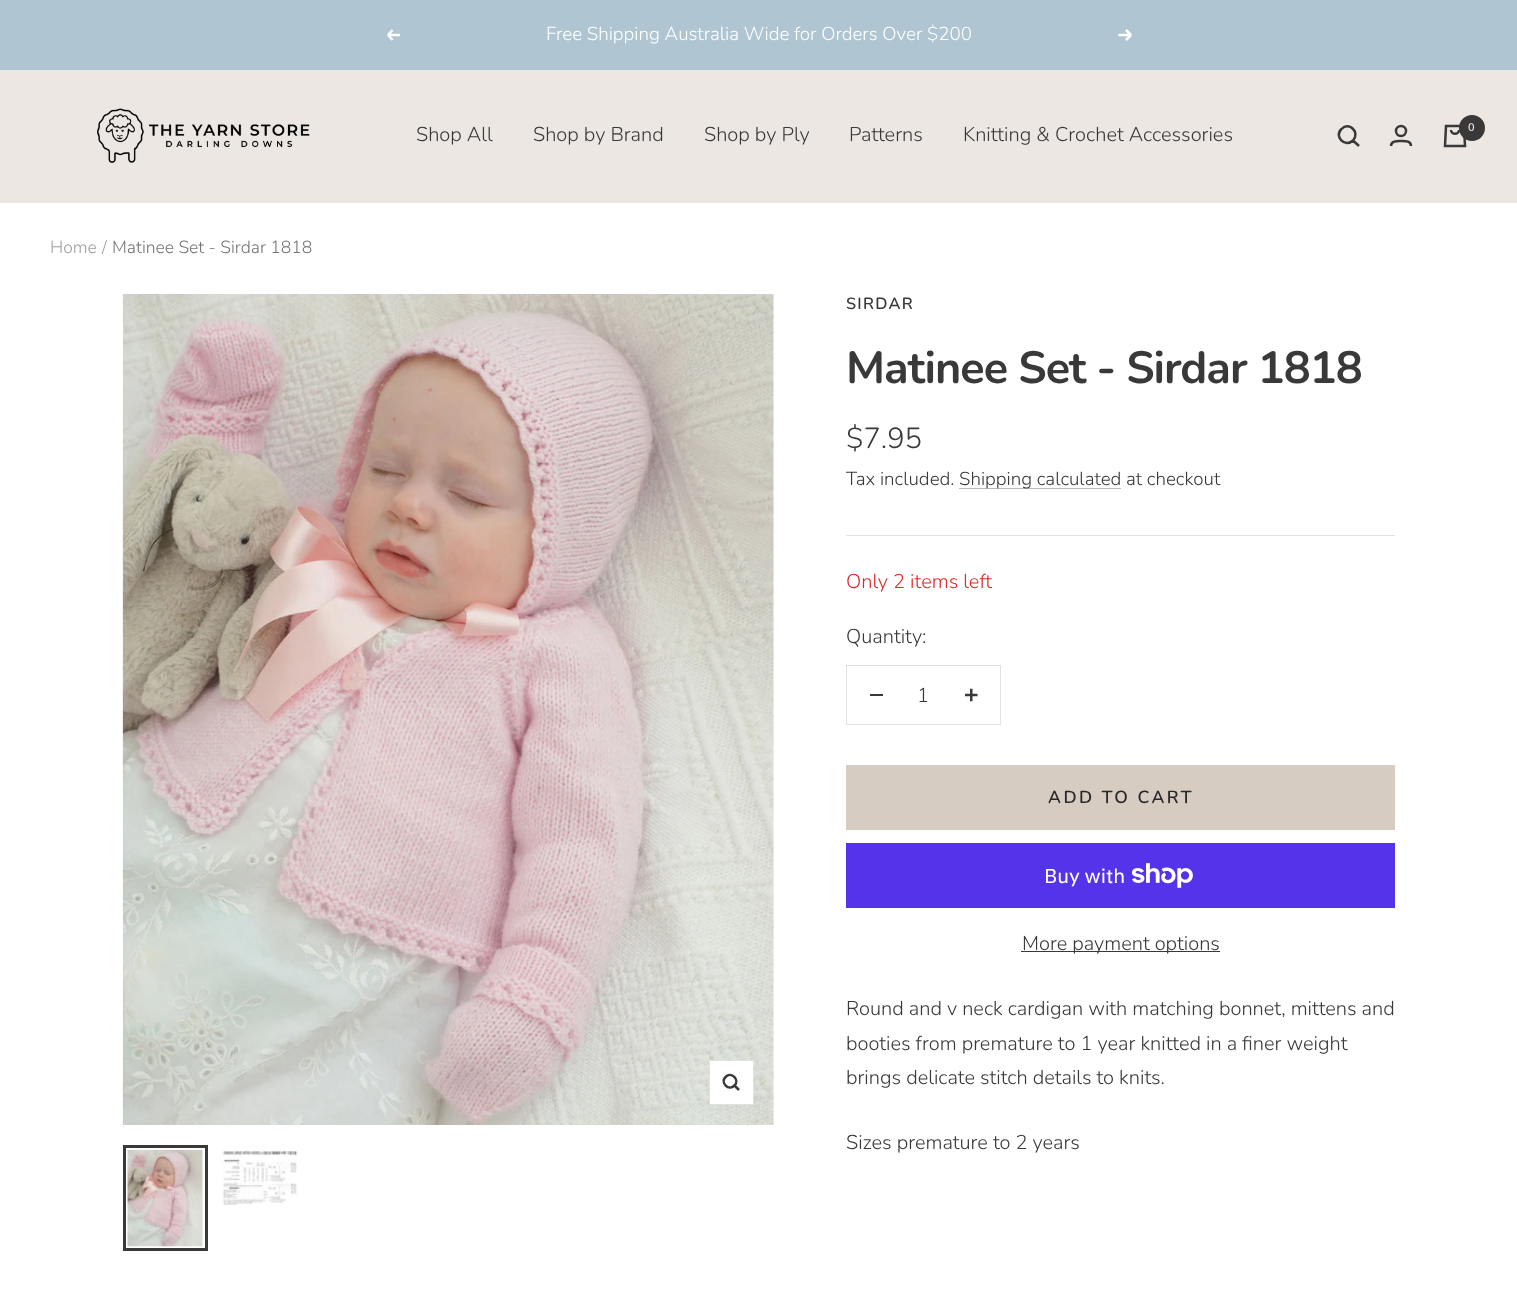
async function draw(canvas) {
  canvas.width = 1517;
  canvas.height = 1309;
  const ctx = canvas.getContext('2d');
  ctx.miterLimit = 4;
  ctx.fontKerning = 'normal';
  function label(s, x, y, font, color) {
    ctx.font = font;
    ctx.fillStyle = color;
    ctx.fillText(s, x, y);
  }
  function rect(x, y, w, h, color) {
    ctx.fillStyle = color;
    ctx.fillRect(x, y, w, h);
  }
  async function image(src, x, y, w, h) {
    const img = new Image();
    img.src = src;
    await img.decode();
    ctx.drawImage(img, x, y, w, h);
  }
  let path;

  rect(0, 0, 1517, 1309, '#fff');
  rect(0, 0, 1517, 70, '#afc6d2');
  path = new Path2D('M400 35H388M388 35L392.5 40M388 35L392.5 30');
  ctx.strokeStyle = '#fff';
  ctx.lineWidth = 2.5;
  ctx.stroke(path);
  label('Free Shipping Australia Wide for Orders Over $200', 546, 40, '300 18.75px Nunito', '#fff');
  path = new Path2D('M1118.5 35H1131M1131 35L1126 40M1131 35L1126 30');
  ctx.stroke(path);
  rect(0, 70, 1517, 133, '#ece7e2');
  await image('assets/img1.png', 97, 108, 213, 55);
  label('Shop All', 416, 141, '300 20px Nunito', '#393939');
  label('Shop by Brand', 533, 141, '300 20px Nunito', '#393939');
  label('Shop by Ply', 704, 141, '300 20px Nunito', '#393939');
  label('Patterns', 849, 141, '300 20px Nunito', '#393939');
  label('Knitting & Crochet Accessories', 963, 141, '300 20px Nunito', '#393939');
  path = new Path2D('M1353 140.5C1360.5 132.5 1349 121 1341.5 129C1333.5 136.5 1345 148 1353 140.5ZM1353 140.5L1359 146');
  ctx.strokeStyle = '#393939';
  ctx.stroke(path);
  ctx.beginPath();
  ctx.arc(1401, 131, 5, 0, 2 * Math.PI);
  ctx.stroke();
  path = new Path2D('M1391 146C1391 140.5 1397.5 141 1401 141C1405 141 1411 140.5 1411 146');
  ctx.stroke(path);
  path = new Path2D('M1446 126H1464L1465 146H1445ZM1451 130C1451 135 1459 135 1459 130');
  ctx.stroke(path);
  ctx.beginPath();
  ctx.arc(1472, 128, 13, 0, 2 * Math.PI);
  ctx.fill();
  label('0', 1468, 131, '600 11px Nunito', '#ece7e2');
  label('Home', 50, 253, '300 17.5px Nunito', '#9e9e9e');
  label('/', 102, 253, '300 17.5px Nunito', '#9e9e9e');
  label('Matinee Set - Sirdar 1818', 112, 253, '300 17.5px Nunito', '#747474');
  rect(773, 294, 1, 831, '#f4f6f8');
  await image('assets/img2.png', 122, 294, 652, 831);
  ctx.fillStyle = '#fff';
  ctx.beginPath();
  ctx.rect(709.5, 1060.5, 44, 44);
  ctx.fill();
  ctx.strokeStyle = '#e1e1e1';
  ctx.lineWidth = 1;
  ctx.stroke();
  path = new Path2D('M734.5 1085.5C740 1080 731.5 1071 725.5 1077C720 1082.5 728.5 1091.5 734.5 1085.5ZM734.5 1085.5L739 1090');
  ctx.strokeStyle = '#393939';
  ctx.lineWidth = 2.5;
  ctx.stroke(path);
  await image('assets/img3.png', 127, 1150, 76, 97);
  ctx.lineWidth = 3;
  ctx.strokeRect(124.5, 1146.5, 82, 103);
  await image('assets/img4.png', 222, 1150, 76, 55);
  rect(846, 535, 549, 1, '#e1e1e1');
  ctx.letterSpacing = '1.25px';
  label('SIRDAR', 846, 309, '600 16.25px Nunito', '#393939');
  ctx.letterSpacing = '-1px';
  label('Matinee Set - Sirdar 1818', 846, 383, 'bold 45px Nunito', '#393939');
  ctx.letterSpacing = '0px';
  label('$7.95', 846, 448, '300 29px Nunito', '#393939');
  label('Tax included.', 846, 485, '300 18.75px Nunito', '#393939');
  rect(959, 488, 162, 1, '#bababa');
  label('Shipping calculated at checkout', 959, 485, '300 18.75px Nunito', '#393939');
  label('Only 2 items left', 846, 588, '300 20px Nunito', '#de2a2a');
  label('Quantity:', 846, 643, '300 20px Nunito', '#393939');
  ctx.strokeStyle = '#e1e1e1';
  ctx.lineWidth = 1;
  ctx.strokeRect(846.5, 665.5, 154, 59);
  rect(870, 694, 13, 2, '#393939');
  label('1', 917, 702, '300 20px Nunito', '#393939');
  await image('assets/img5.png', 965, 688, 13, 14);
  rect(846, 765, 549, 65, '#d6ccc2');
  ctx.letterSpacing = '2.5px';
  label('ADD TO CART', 1048, 803, '600 17.5px Nunito', '#282828');
  rect(846, 843, 549, 65, '#5433eb');
  ctx.letterSpacing = '0px';
  label('Buy with', 1044, 883, '20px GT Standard', '#fff');
  await image('assets/img6.png', 1131, 863, 62, 25);
  rect(1021, 951, 199, 1, '#393939');
  label('More payment options', 1022, 950, '300 20px Nunito', '#393939');
  label('Round and v neck cardigan with matching bonnet, mittens and', 846, 1015, '300 20px Nunito', '#393939');
  label('booties from premature to 1 year knitted in a finer weight', 846, 1050, '300 20px Nunito', '#393939');
  label('brings delicate stitch details to knits.', 846, 1084, '300 20px Nunito', '#393939');
  label('Sizes premature to 2 years', 846, 1149, '300 20px Nunito', '#393939');
}

draw(document.querySelector('canvas'));
